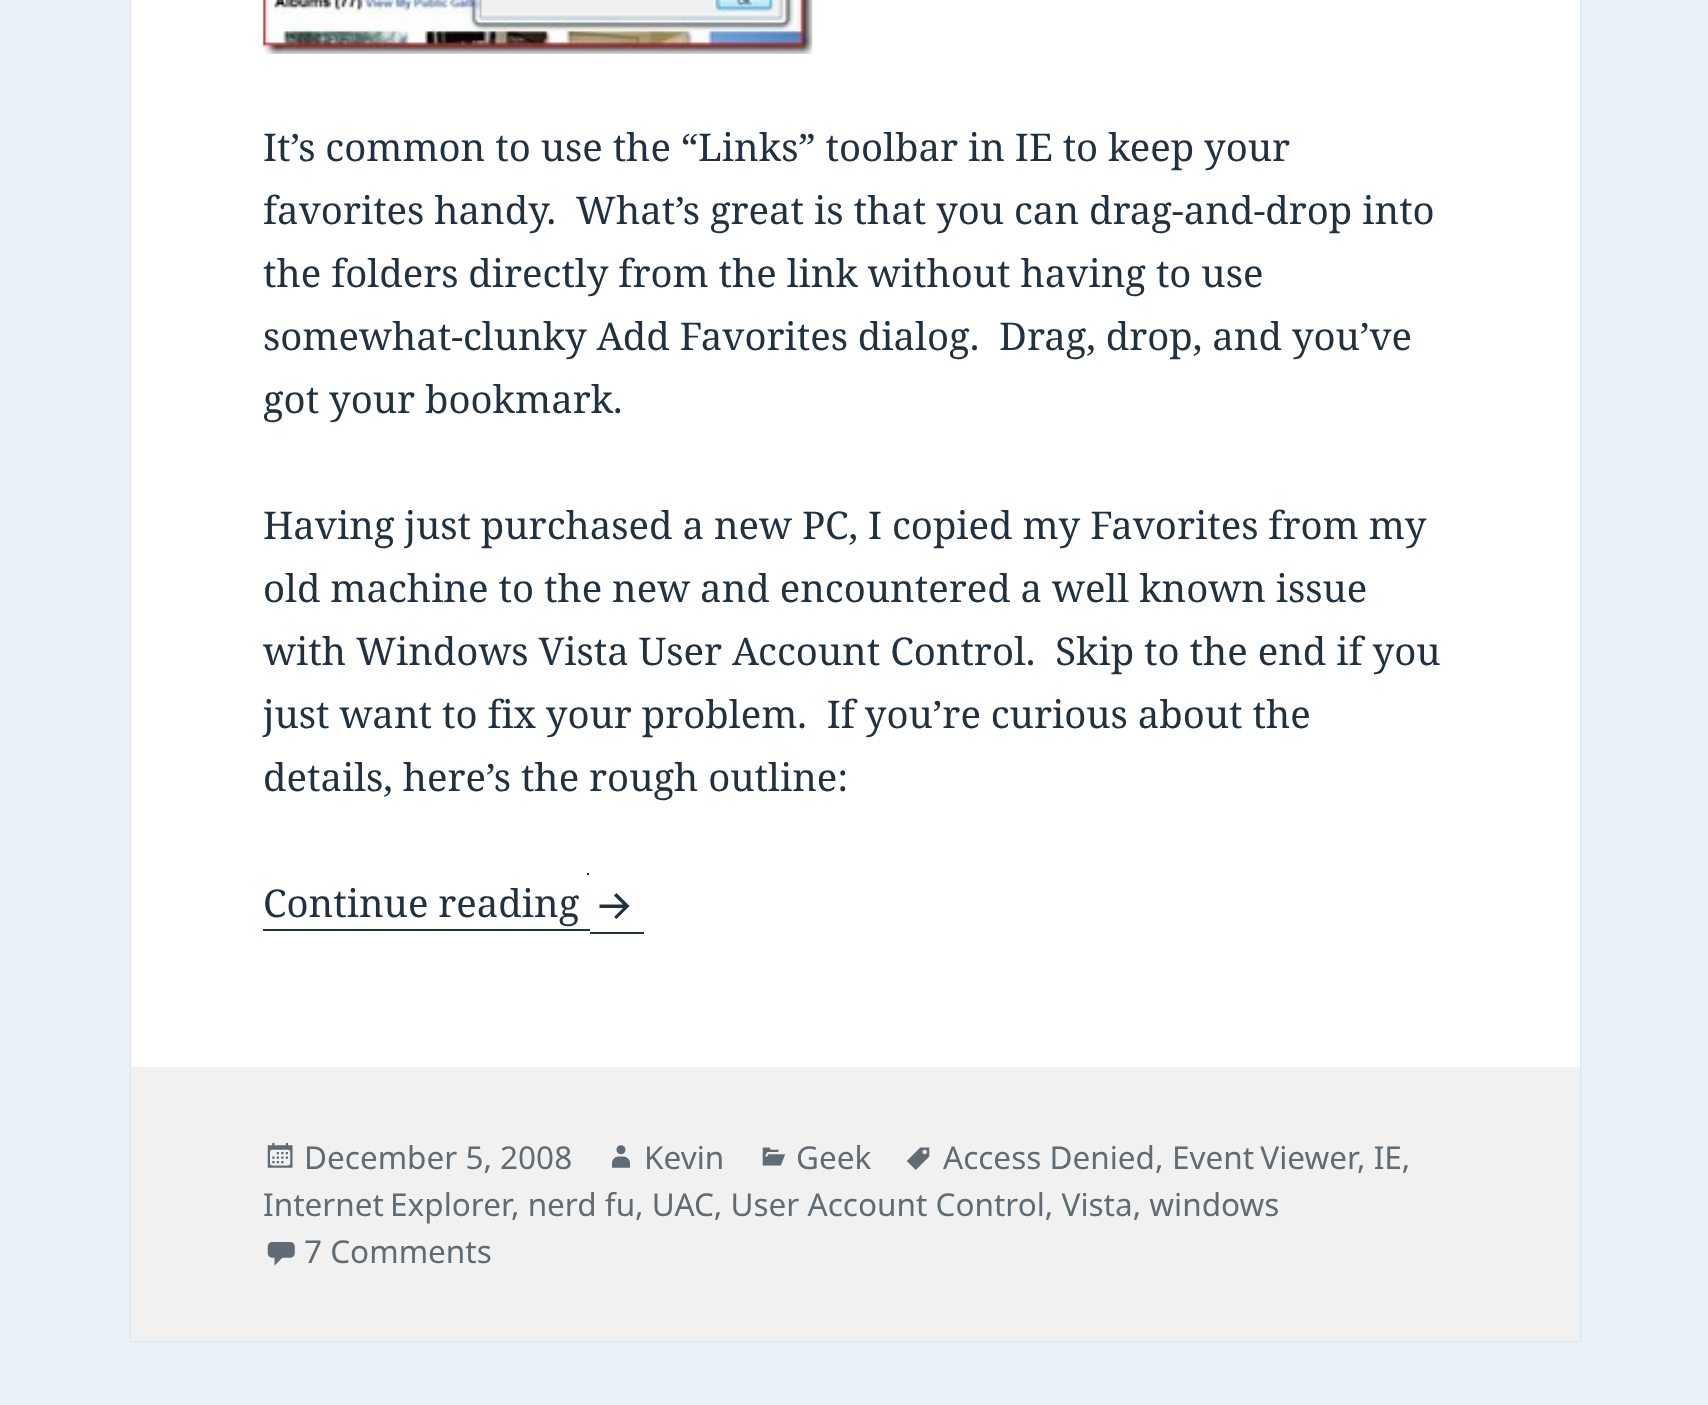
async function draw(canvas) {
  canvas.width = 1708;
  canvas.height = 1405;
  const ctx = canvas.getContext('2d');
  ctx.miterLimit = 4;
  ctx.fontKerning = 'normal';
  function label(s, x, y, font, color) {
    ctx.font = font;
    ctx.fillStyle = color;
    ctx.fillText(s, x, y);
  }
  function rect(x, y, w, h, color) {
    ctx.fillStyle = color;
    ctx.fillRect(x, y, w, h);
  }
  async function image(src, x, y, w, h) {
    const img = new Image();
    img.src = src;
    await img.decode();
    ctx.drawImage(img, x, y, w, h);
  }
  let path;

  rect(0, 0, 1708, 1405, '#e9f2f9');
  ctx.fillStyle = '#00000026';
  ctx.filter = 'blur(1px)';
  ctx.beginPath();
  ctx.rect(131, -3, 1449, 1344);
  ctx.fill();
  ctx.filter = 'none';
  rect(131, 0, 1449, 1067, '#fff');
  await image('assets/img1.png', 263, 0, 550, 54);
  label('It’s common to use the “Links” toolbar in IE to keep your', 263, 161, '38.25px Noto Serif', '#22313f');
  label('favorites handy.  What’s great is that you can drag-and-drop into', 263, 224, '38.25px Noto Serif', '#22313f');
  label('the folders directly from the link without having to use', 263, 287, '38.25px Noto Serif', '#22313f');
  label('somewhat-clunky Add Favorites dialog.  Drag, drop, and you’ve', 263, 350, '38.25px Noto Serif', '#22313f');
  label('got your bookmark.', 263, 413, '38.25px Noto Serif', '#22313f');
  label('Having just purchased a new PC, I copied my Favorites from my', 263, 539, '38.25px Noto Serif', '#22313f');
  label('old machine to the new and encountered a well known issue', 263, 602, '38.25px Noto Serif', '#22313f');
  label('with Windows Vista User Account Control.  Skip to the end if you', 263, 665, '38.25px Noto Serif', '#22313f');
  label('just want to fix your problem.  If you’re curious about the', 263, 728, '38.25px Noto Serif', '#22313f');
  label('details, here’s the rough outline:', 263, 791, '38.25px Noto Serif', '#22313f');
  rect(263, 929, 327, 2, '#22313f');
  rect(587, 873, 2, 2, '#22313f');
  rect(590, 932, 54, 2, '#22313f');
  label('Continue reading', 263, 917, '38.25px Noto Serif', '#22313f');
  path = new Path2D('M616.5 893L629.5 906L616.5 919L614 917L623 908H599.5V904.5H623L614 895.5Z');
  ctx.fill(path);
  rect(131, 1067, 1449, 274, '#f1f1f1');
  await image('assets/img2.png', 907, 1147, 23, 23);
  label('Access Denied,', 943, 1169, '31.5px Noto Sans', '#606b74');
  ctx.wordSpacing = '-2px';
  label('Event Viewer', 1172, 1169, '31.5px Noto Sans', '#606b74');
  ctx.wordSpacing = '0px';
  label(', IE,', 1357, 1169, '31.5px Noto Sans', '#606b74');
  ctx.wordSpacing = '-2px';
  label('Internet Explorer', 263, 1216, '31.5px Noto Sans', '#606b74');
  ctx.wordSpacing = '0px';
  label(', nerd fu, UAC, User Account Control, Vista, windows', 511, 1216, '31.5px Noto Sans', '#606b74');
  await image('assets/img3.png', 267, 1143, 26, 25);
  label('December 5, 2008', 304, 1169, '31.5px Noto Sans', '#606b74');
  await image('assets/img4.png', 612, 1145, 18, 23);
  label('Kevin', 644, 1169, '31.5px Noto Sans', '#606b74');
  await image('assets/img5.png', 762, 1147, 24, 19);
  label('Geek', 796, 1169, '31.5px Noto Sans', '#606b74');
  await image('assets/img6.png', 267, 1242, 28, 24);
  label('7 Comments', 304, 1263, '31.5px Noto Sans', '#606b74');
}

draw(document.querySelector('canvas'));
